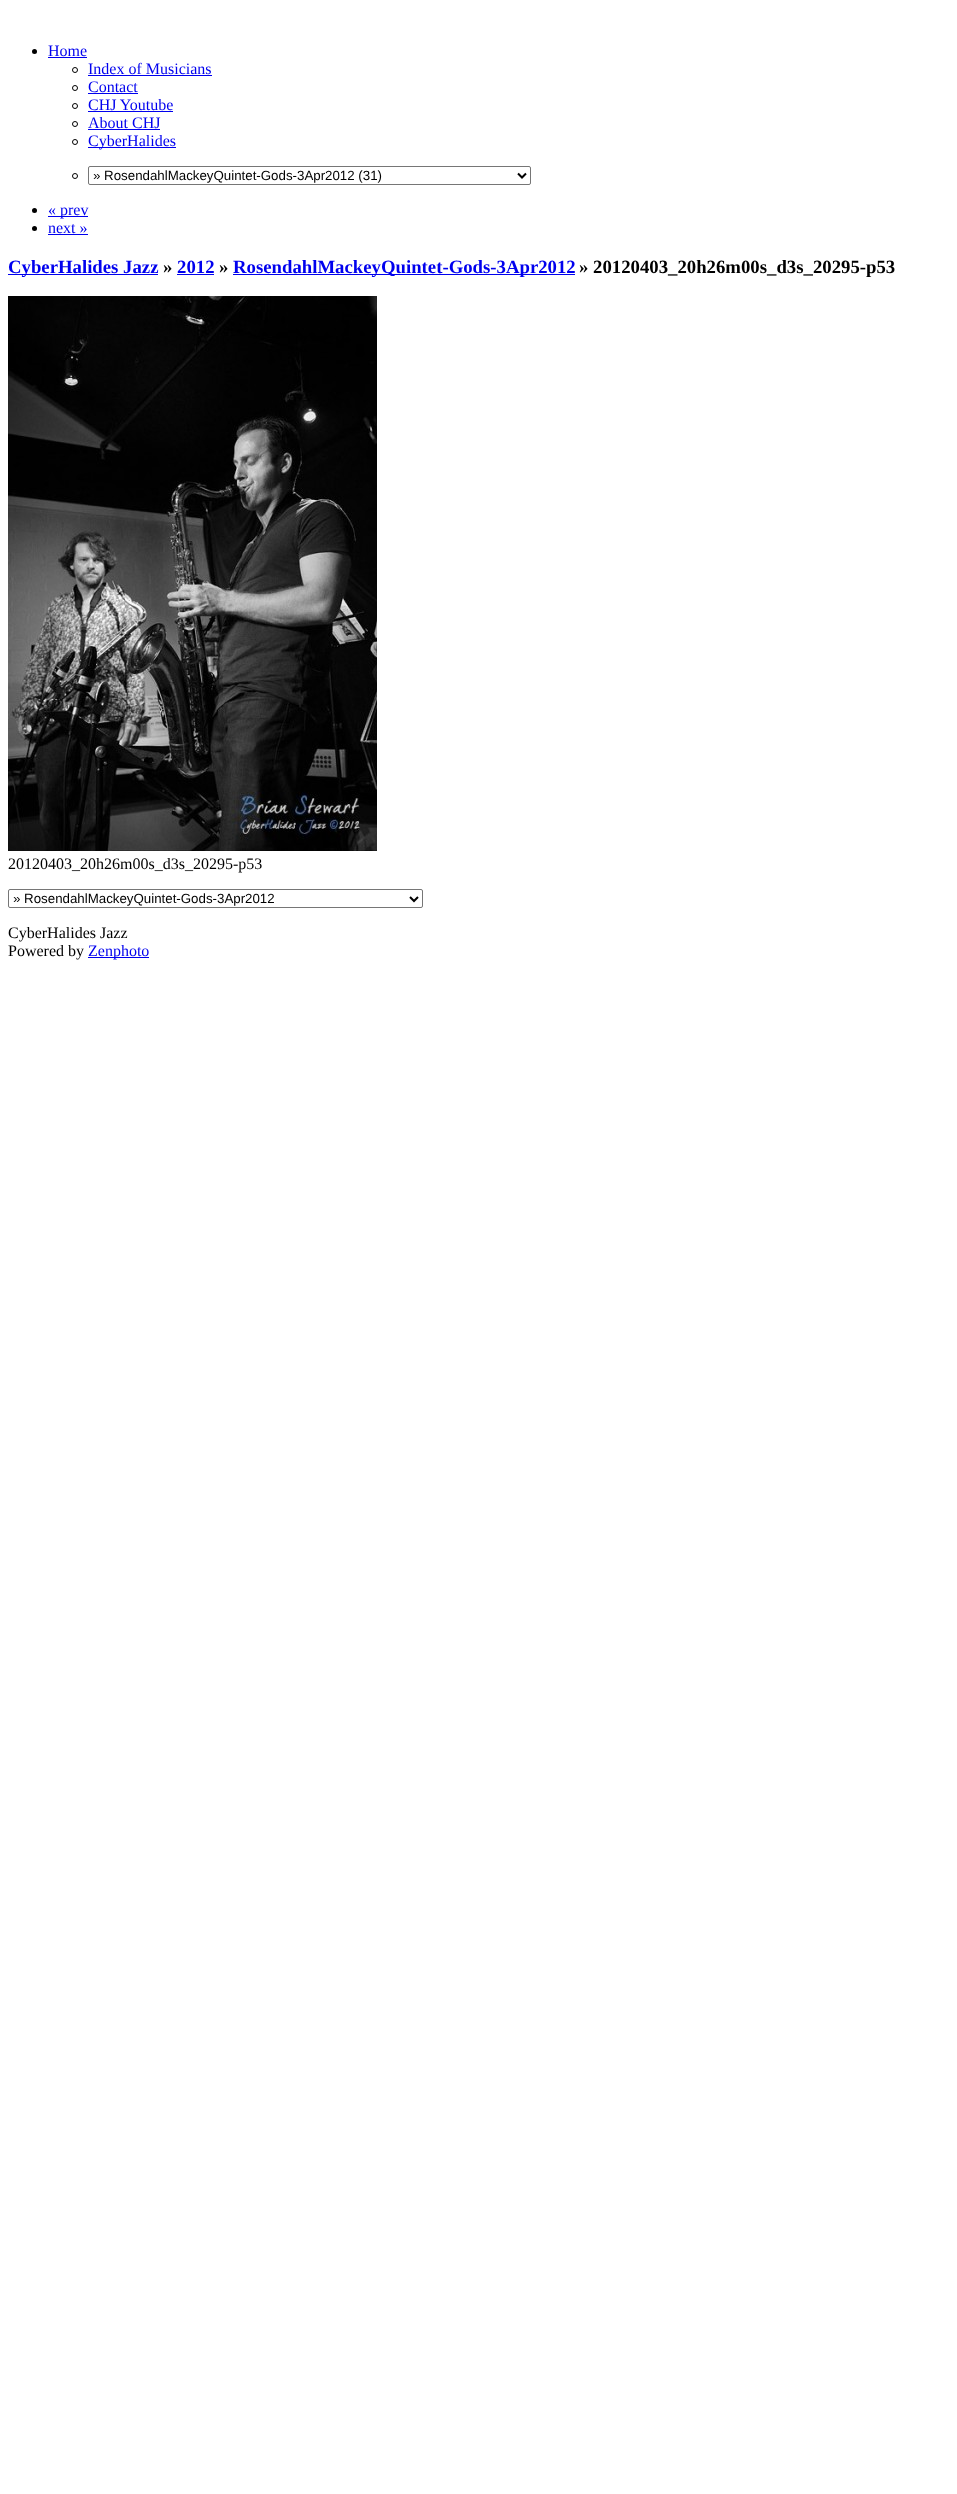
async function draw(canvas) {
  canvas.width = 957;
  canvas.height = 2494;
  const ctx = canvas.getContext('2d');
  ctx.miterLimit = 4;
  ctx.fontKerning = 'normal';
  function label(s, x, y, font, color) {
    ctx.font = font;
    ctx.fillStyle = color;
    ctx.fillText(s, x, y);
  }
  function rect(x, y, w, h, color) {
    ctx.fillStyle = color;
    ctx.fillRect(x, y, w, h);
  }
  async function image(src, x, y, w, h) {
    const img = new Image();
    img.src = src;
    await img.decode();
    ctx.drawImage(img, x, y, w, h);
  }
  let path;

  rect(0, 0, 957, 2494, '#fff');
  ctx.fillStyle = '#000';
  ctx.beginPath();
  ctx.arc(34.5, 51.5, 2.5, 0, 2 * Math.PI);
  ctx.fill();
  label('Home', 48, 56, '16px Liberation Serif', '#00e');
  rect(48, 57, 39, 1, '#00e');
  ctx.beginPath();
  ctx.arc(75, 70, 2.5, 0, 2 * Math.PI);
  ctx.strokeStyle = '#000';
  ctx.stroke();
  label('Index of Musicians', 88, 74, '16px Liberation Serif', '#00e');
  rect(88, 75, 124, 1, '#00e');
  ctx.beginPath();
  ctx.arc(75, 88, 2.5, 0, 2 * Math.PI);
  ctx.stroke();
  label('Contact', 88, 92, '16px Liberation Serif', '#00e');
  rect(88, 93, 50, 1, '#00e');
  ctx.beginPath();
  ctx.arc(75, 106, 2.5, 0, 2 * Math.PI);
  ctx.stroke();
  label('CHJ Youtube', 88, 110, '16px Liberation Serif', '#00e');
  rect(88, 111, 85, 1, '#00e');
  ctx.beginPath();
  ctx.arc(75, 124, 2.5, 0, 2 * Math.PI);
  ctx.stroke();
  label('About CHJ', 88, 128, '16px Liberation Serif', '#00e');
  rect(88, 129, 72, 1, '#00e');
  ctx.beginPath();
  ctx.arc(75, 142, 2.5, 0, 2 * Math.PI);
  ctx.stroke();
  rect(88, 147, 88, 1, '#00e');
  label('CyberHalides', 88, 146, '16px Liberation Serif', '#00e');
  ctx.beginPath();
  ctx.arc(75, 176, 2.5, 0, 2 * Math.PI);
  ctx.stroke();
  ctx.beginPath();
  ctx.roundRect(88.5, 166.5, 442, 18, 1.5);
  ctx.strokeStyle = '#767676';
  ctx.stroke();
  path = new Path2D('M518 173.5L522 177.5L526 173.5');
  ctx.strokeStyle = '#000';
  ctx.lineWidth = 2;
  ctx.stroke(path);
  label('» RosendahlMackeyQuintet-Gods-3Apr2012 (31)', 93, 180, '13.3px Liberation Sans', '#000');
  ctx.beginPath();
  ctx.arc(34.5, 210.5, 2.5, 0, 2 * Math.PI);
  ctx.fill();
  rect(48, 216, 40, 1, '#00e');
  label('« prev', 48, 215, '16px Liberation Serif', '#00e');
  ctx.fillStyle = '#000';
  ctx.beginPath();
  ctx.arc(34.5, 228.5, 2.5, 0, 2 * Math.PI);
  ctx.fill();
  label('next »', 48, 233, '16px Liberation Serif', '#00e');
  rect(48, 234, 40, 1, '#00e');
  rect(8, 274, 150, 1, '#00e');
  label('CyberHalides Jazz', 8, 273, 'bold 18.75px Liberation Serif', '#00e');
  label('»', 163, 273, 'bold 18.75px Liberation Serif', '#000');
  label('2012', 177, 273, 'bold 18.75px Liberation Serif', '#00e');
  rect(177, 274, 37, 1, '#00e');
  label('»', 219, 273, 'bold 18.75px Liberation Serif', '#000');
  rect(233, 274, 342, 1, '#00e');
  label('RosendahlMackeyQuintet-Gods-3Apr2012', 233, 273, 'bold 18.75px Liberation Serif', '#00e');
  label('» 20120403_20h26m00s_d3s_20295-p53', 579, 273, 'bold 18.75px Liberation Serif', '#000');
  await image('assets/img1.png', 8, 296, 369, 555);
  label('20120403_20h26m00s_d3s_20295-p53', 8, 869, '16px Liberation Serif', '#000');
  ctx.beginPath();
  ctx.roundRect(8.5, 889.5, 414, 18, 1.5);
  ctx.strokeStyle = '#767676';
  ctx.lineWidth = 1;
  ctx.stroke();
  path = new Path2D('M410 897L414 901L418 897');
  ctx.strokeStyle = '#000';
  ctx.lineWidth = 2;
  ctx.stroke(path);
  label('» RosendahlMackeyQuintet-Gods-3Apr2012', 13, 903, '13.3px Liberation Sans', '#000');
  label('CyberHalides Jazz', 8, 938, '16px Liberation Serif', '#000');
  label('Powered by', 8, 956, '16px Liberation Serif', '#000');
  rect(88, 957, 61, 1, '#00e');
  label('Zenphoto', 88, 956, '16px Liberation Serif', '#00e');
}

draw(document.querySelector('canvas'));
